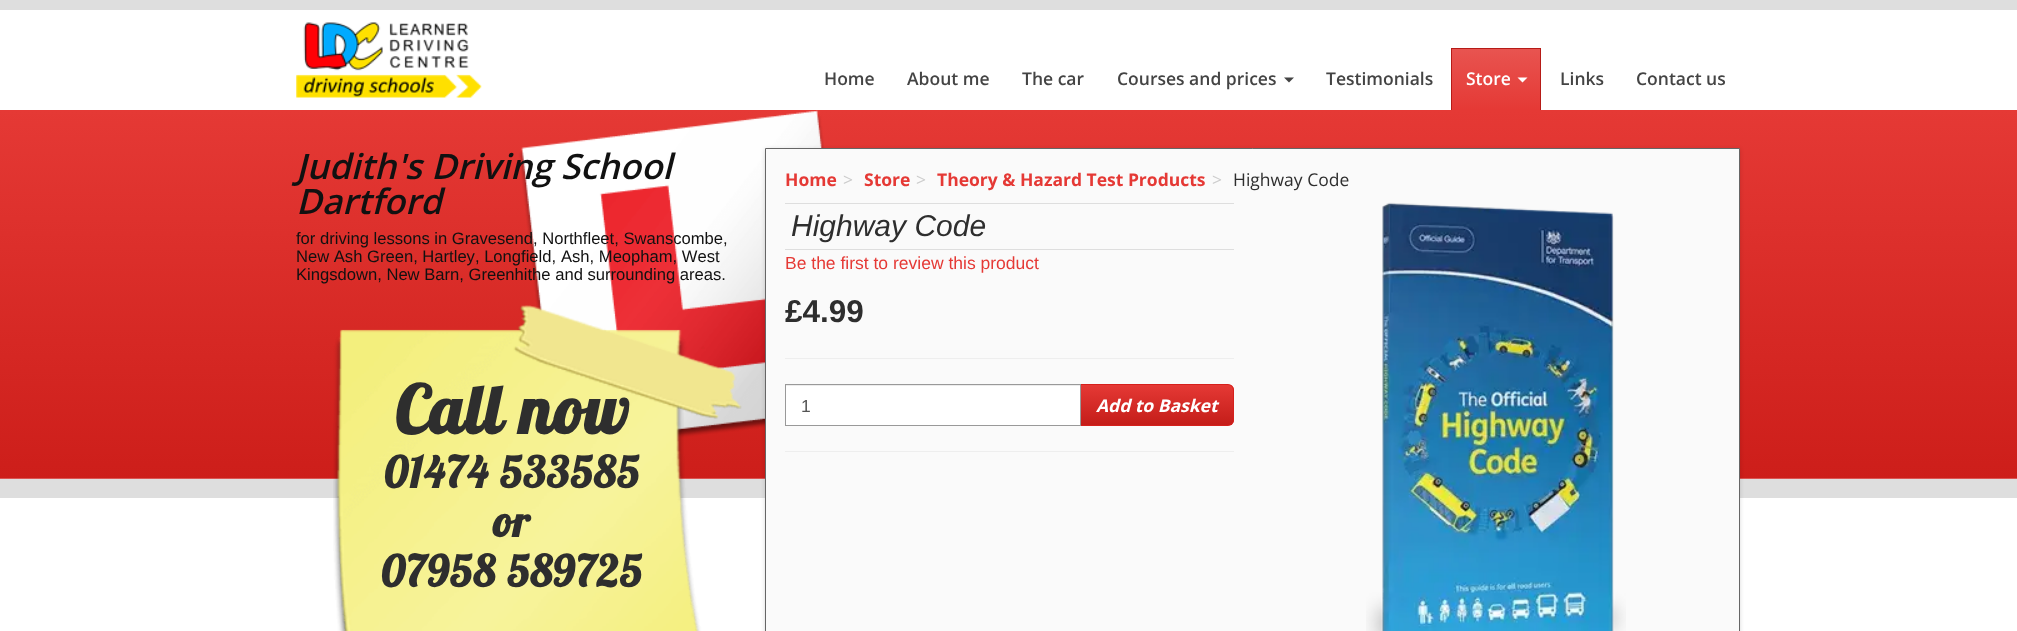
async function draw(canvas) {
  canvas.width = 2017;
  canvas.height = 631;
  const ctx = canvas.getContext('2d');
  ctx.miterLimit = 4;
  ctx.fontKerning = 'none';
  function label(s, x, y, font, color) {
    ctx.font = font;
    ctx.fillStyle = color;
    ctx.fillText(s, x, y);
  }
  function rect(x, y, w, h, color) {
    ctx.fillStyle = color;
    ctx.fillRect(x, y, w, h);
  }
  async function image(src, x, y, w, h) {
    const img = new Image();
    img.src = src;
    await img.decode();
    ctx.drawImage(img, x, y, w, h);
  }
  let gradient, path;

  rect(0, 0, 2017, 631, '#fff');
  rect(0, 0, 2017, 10, '#dedede');
  await image('assets/img1.png', 296, 22, 186, 76);
  label('Home', 824, 85, '600 17.5px Open Sans', '#444');
  label('About me', 907, 85, '600 17.5px Open Sans', '#444');
  label('The car', 1022, 85, '600 17.5px Open Sans', '#444');
  label('Courses and prices', 1117, 85, '600 17.5px Open Sans', '#444');
  path = new Path2D('M1284 77.5H1294L1289 82.5Z');
  ctx.fill(path);
  label('Testimonials', 1326, 85, '600 17.5px Open Sans', '#444');
  gradient = ctx.createLinearGradient(1496, 49, 1496, 110);
  gradient.addColorStop(0, '#e85450');
  gradient.addColorStop(1, '#e53935');
  ctx.fillStyle = gradient;
  ctx.fillRect(1452, 49, 88, 61);
  rect(1451, 48, 90, 1, '#b61b17');
  rect(1540, 48, 1, 62, '#b61b17');
  rect(1451, 48, 1, 62, '#b61b17');
  label('Store', 1466, 85, '600 17.5px Open Sans', '#fff');
  path = new Path2D('M1517.5 77.5H1527.5L1522.5 82.5Z');
  ctx.fill(path);
  label('Links', 1560, 85, '600 17.5px Open Sans', '#444');
  label('Contact us', 1636, 85, '600 17.5px Open Sans', '#444');
  await image('assets/img2.png', 0, 110, 2017, 369);
  rect(0, 479, 2017, 19, '#dedede');
  label('Judith\'s Driving School', 296, 179, 'italic 600 35px Open Sans', '#111');
  label('Dartford', 296, 214, 'italic 600 35px Open Sans', '#111');
  label('for driving lessons in Gravesend, Northfleet, Swanscombe,', 296, 244, '16.6px Liberation Sans', '#111');
  label('New Ash Green, Hartley, Longfield,', 296, 262, '16.6px Liberation Sans', '#111');
  label('Ash, Meopham, West', 561, 262, '16.6px Liberation Sans', '#111');
  label('Kingsdown, New Barn, Greenhithe and surrounding areas.', 296, 280, '16.6px Liberation Sans', '#111');
  await image('assets/img3.png', 333, 305, 409, 326);
  ctx.letterSpacing = '1.25px';
  label('Call now', 395, 434, 'bold 66.5px Lobster', '#2e2e2e');
  label('01474 533585', 384, 488, 'bold 43.25px Lobster', '#2e2e2e');
  label('or', 493, 537, 'bold 43.25px Lobster', '#2e2e2e');
  label('07958 589725', 381, 587, 'bold 43.25px Lobster', '#2e2e2e');
  ctx.fillStyle = '#00000026';
  ctx.filter = 'blur(2px)';
  ctx.beginPath();
  ctx.rect(765, 149, 975, 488);
  ctx.fill();
  ctx.filter = 'none';
  ctx.fillStyle = '#fafafa';
  ctx.beginPath();
  ctx.rect(765.5, 148.5, 974, 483);
  ctx.fill();
  ctx.strokeStyle = '#666';
  ctx.stroke();
  ctx.letterSpacing = '0px';
  label('Home', 785, 186, 'bold 17.5px Open Sans', '#e53935');
  label('>', 843, 186, '17.5px Open Sans', '#ccc');
  label('Store', 864, 186, 'bold 17.5px Open Sans', '#e53935');
  label('>', 916, 186, '17.5px Open Sans', '#ccc');
  label('Theory & Hazard Test Products', 937, 186, 'bold 17.5px Open Sans', '#e53935');
  label('>', 1212, 186, '17.5px Open Sans', '#ccc');
  label('Highway Code', 1233, 186, '17.5px Open Sans', '#2e2e2e');
  rect(785, 203, 449, 1, '#dedede');
  rect(785, 249, 449, 1, '#dedede');
  label('Highway Code', 791, 236, 'italic 30px Liberation Sans', '#2e2e2e');
  label('Be the first to review this product', 785, 269, '17.5px Liberation Sans', '#e53935');
  label('£4.99', 785, 322, 'bold 31.5px Liberation Sans', '#2e2e2e');
  rect(785, 358, 449, 1, '#eee');
  rect(786, 386, 294, 39, '#fff');
  rect(786, 385, 294, 1, '#ececec');
  ctx.save();
  ctx.beginPath();
  ctx.roundRect(1080, 384, 154, 42, [0, 6, 6, 0]);
  ctx.clip();
  gradient = ctx.createLinearGradient(1157, 385, 1157, 425);
  gradient.addColorStop(0, '#e53935');
  gradient.addColorStop(1, '#c41d19');
  ctx.fillStyle = gradient;
  ctx.fillRect(1081, 385, 153, 40);
  ctx.restore();
  ctx.beginPath();
  ctx.roundRect(1080.5, 384.5, 153, 41, [0, 5.5, 5.5, 0]);
  ctx.strokeStyle = '#d6201c';
  ctx.stroke();
  ctx.strokeStyle = '#999';
  ctx.strokeRect(785.5, 384.5, 295, 41);
  label('1', 801, 412, '17.5px Liberation Sans', '#555');
  label('Add to Basket', 1096, 412, 'italic bold 17.5px Open Sans', '#fff');
  rect(785, 451, 449, 1, '#eee');
  await image('assets/img4.png', 1366, 202, 260, 429);
}

draw(document.querySelector('canvas'));
